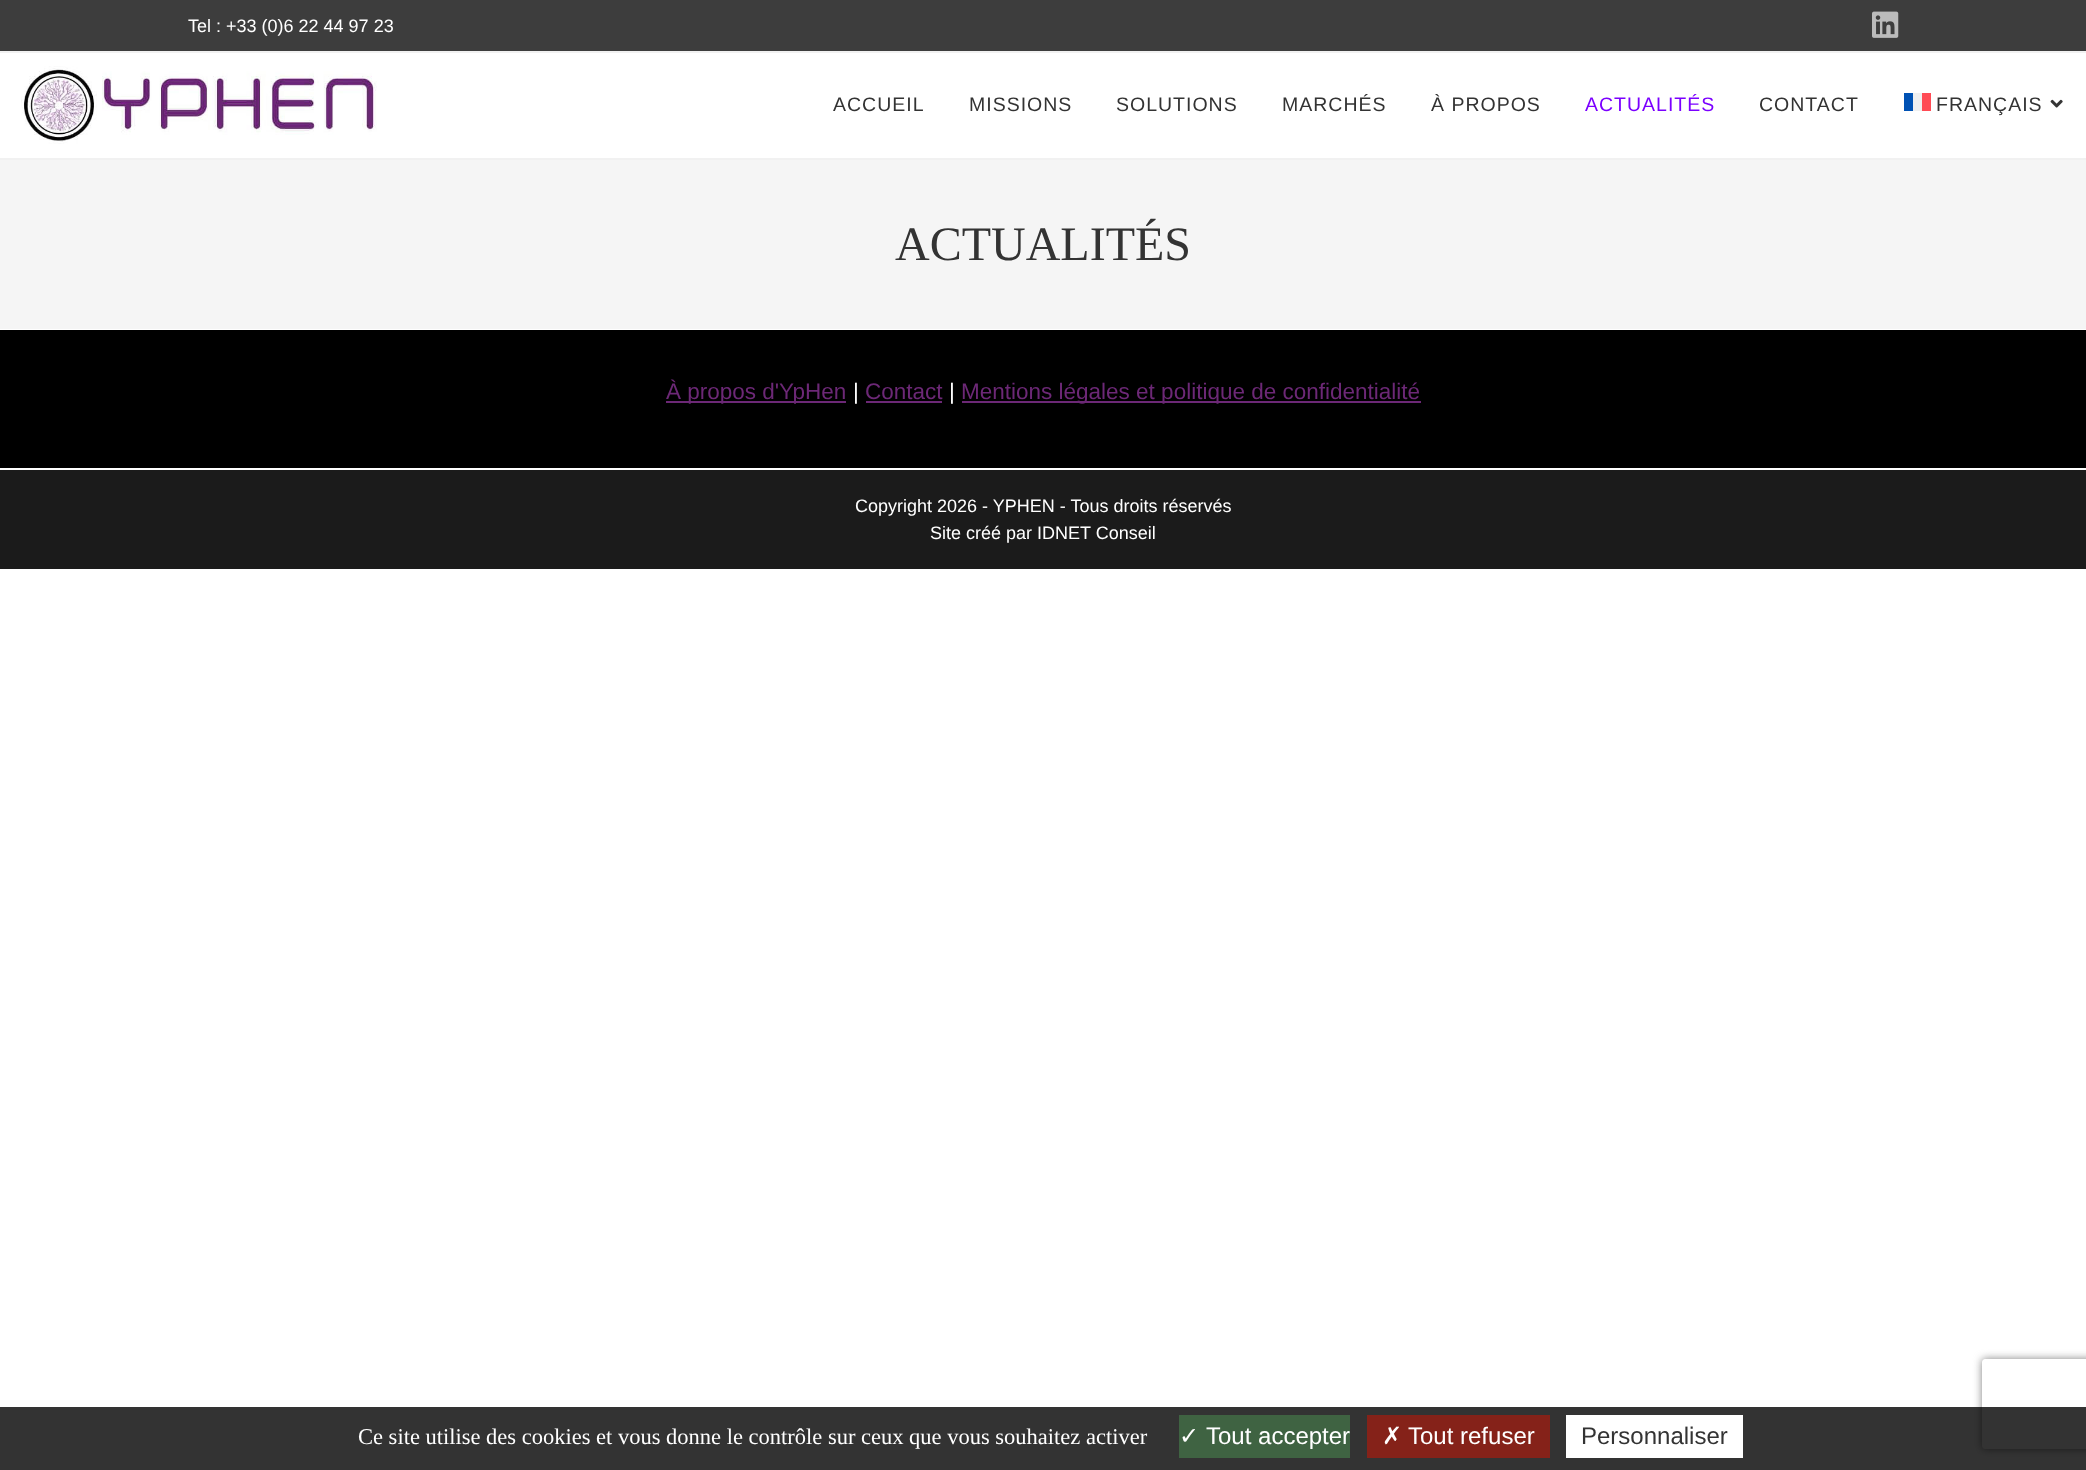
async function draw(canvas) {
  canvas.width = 2086;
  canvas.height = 1470;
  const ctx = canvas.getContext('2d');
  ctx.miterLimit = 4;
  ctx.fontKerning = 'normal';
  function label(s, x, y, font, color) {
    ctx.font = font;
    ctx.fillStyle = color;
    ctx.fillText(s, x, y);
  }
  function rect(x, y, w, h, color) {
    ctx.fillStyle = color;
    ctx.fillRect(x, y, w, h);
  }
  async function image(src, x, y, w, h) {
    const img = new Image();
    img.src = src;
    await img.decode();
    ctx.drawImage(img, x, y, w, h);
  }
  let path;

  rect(0, 0, 2086, 1470, '#fff');
  rect(0, 0, 2086, 51, '#3d3d3d');
  rect(0, 51, 2086, 2, '#f1f1f1');
  label('Tel : +33 (0)6 22 44 97 23', 188, 32, '18px Liberation Sans', '#fff');
  await image('assets/img1.png', 1872, 11, 27, 27);
  rect(0, 158, 2086, 2, '#f1f1f1');
  await image('assets/img2.png', 21, 66, 356, 78);
  ctx.letterSpacing = '1px';
  label('ACCUEIL', 833, 111, '19.5px Liberation Sans', '#333');
  label('MISSIONS', 969, 111, '19.5px Liberation Sans', '#333');
  label('SOLUTIONS', 1116, 111, '19.5px Liberation Sans', '#333');
  label('MARCHÉS', 1282, 111, '19.5px Liberation Sans', '#333');
  label('À PROPOS', 1431, 111, '19.5px Liberation Sans', '#333');
  label('ACTUALITÉS', 1585, 111, '19.5px Liberation Sans', '#7b00ff');
  label('CONTACT', 1759, 111, '19.5px Liberation Sans', '#333');
  rect(1904, 93, 9, 18, '#0052b4');
  rect(1913, 93, 9, 18, '#f0f0f0');
  rect(1922, 93, 9, 18, '#ff4b55');
  label('FRANÇAIS', 1936, 111, '19.5px Liberation Sans', '#333');
  await image('assets/img3.png', 2050, 99, 13, 9);
  rect(0, 160, 2086, 169, '#f5f5f5');
  ctx.letterSpacing = '0px';
  label('ACTUALITÉS', 895, 260, '48px Liberation Serif', '#333');
  rect(0, 330, 2086, 138, '#000');
  rect(666, 401, 180, 2, '#6c2876');
  label('À propos d\'YpHen', 666, 399, '22.5px Liberation Sans', '#6c2876');
  label('|', 853, 399, '22.5px Liberation Sans', '#fff');
  label('Contact', 865, 399, '22.5px Liberation Sans', '#6c2876');
  rect(866, 401, 76, 2, '#6c2876');
  label('|', 949, 399, '22.5px Liberation Sans', '#fff');
  rect(962, 401, 459, 2, '#6c2876');
  label('Mentions légales et politique de confidentialité', 961, 399, '22.5px Liberation Sans', '#6c2876');
  rect(0, 470, 2086, 99, '#1b1b1b');
  label('Copyright 2026 - YPHEN - Tous droits réservés', 855, 512, '18px Liberation Sans', '#fff');
  label('Site créé par IDNET Conseil', 930, 539, '18px Liberation Sans', '#fff');
  ctx.save();
  path = new Path2D('M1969 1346H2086V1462H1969ZM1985 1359H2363C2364.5 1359 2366 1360.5 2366 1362V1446C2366 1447.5 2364.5 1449 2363 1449H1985C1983.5 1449 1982 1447.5 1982 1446V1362C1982 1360.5 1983.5 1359 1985 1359Z');
  ctx.clip(path, 'evenodd');
  ctx.fillStyle = '#808080';
  ctx.filter = 'blur(4px)';
  ctx.beginPath();
  ctx.roundRect(1982, 1359, 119, 90, 3);
  ctx.fill();
  ctx.filter = 'none';
  ctx.restore();
  rect(0, 1407, 2086, 63, '#000000cc');
  label('Ce site utilise des cookies et vous donne le contrôle sur ceux que vous souhaitez activer', 358, 1444, '22.5px Liberation Serif', '#fff');
  rect(1179, 1415, 171, 43, '#3f6342');
  label('✓', 1179, 1444, '24px DejaVu Sans', '#fff');
  label('Tout accepter', 1206, 1444, '24px Liberation Sans', '#fff');
  rect(1367, 1415, 183, 43, '#852219');
  label('✗', 1382, 1444, '24px DejaVu Sans', '#fff');
  label('Tout refuser', 1408, 1444, '24px Liberation Sans', '#fff');
  rect(1566, 1415, 177, 43, '#fff');
  label('Personnaliser', 1581, 1444, '24px Liberation Sans', '#333');
}

draw(document.querySelector('canvas'));
